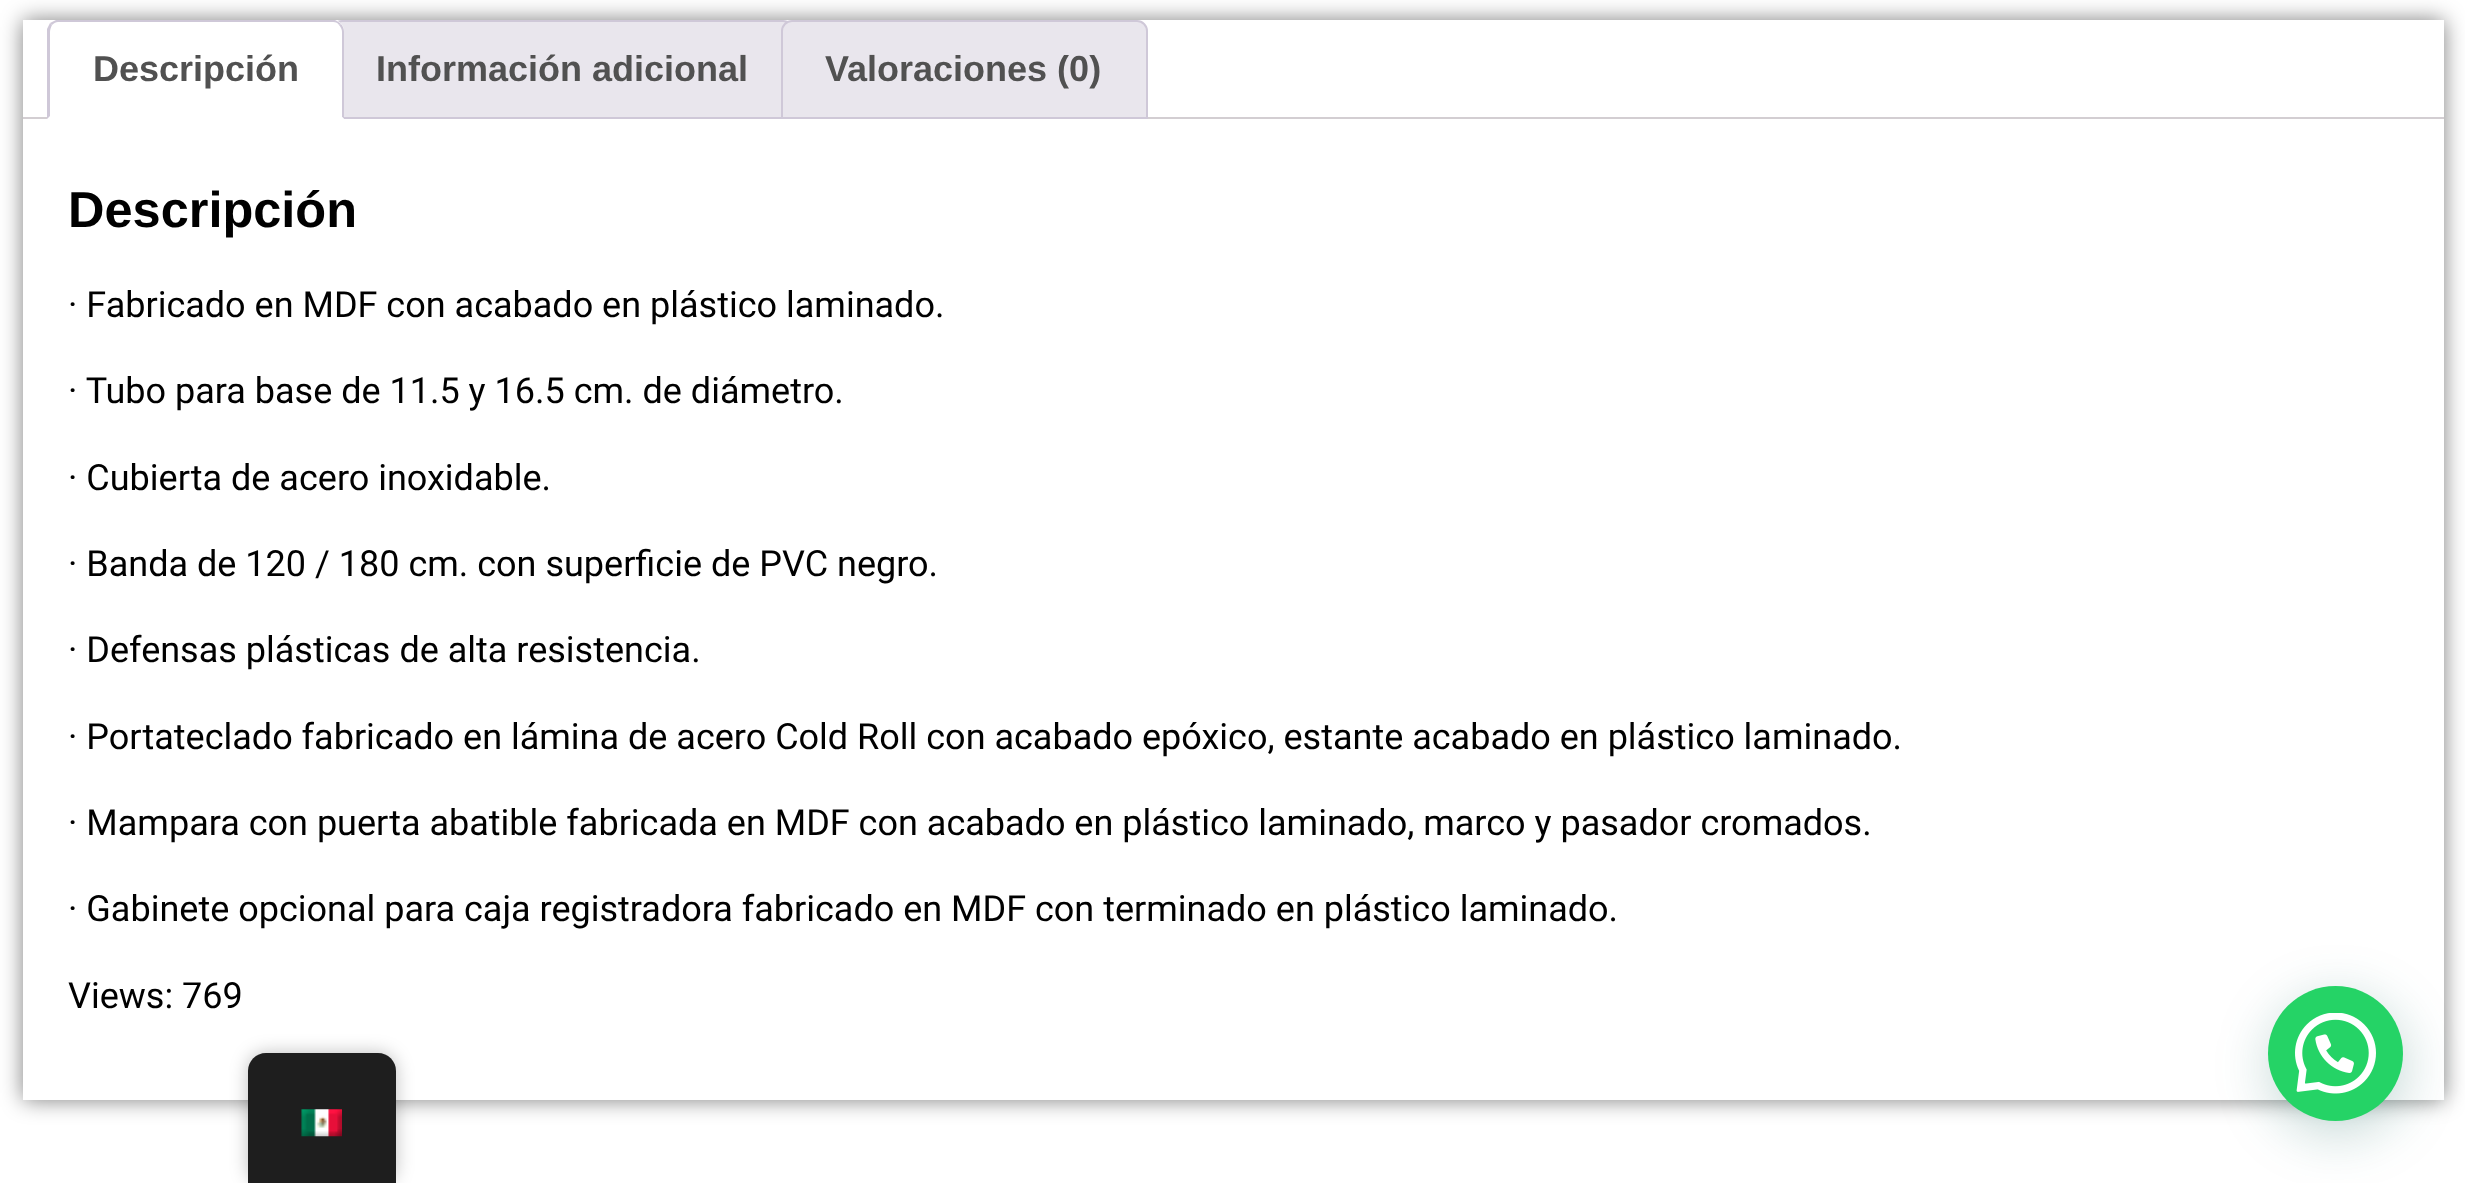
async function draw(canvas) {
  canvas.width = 2465;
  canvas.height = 1183;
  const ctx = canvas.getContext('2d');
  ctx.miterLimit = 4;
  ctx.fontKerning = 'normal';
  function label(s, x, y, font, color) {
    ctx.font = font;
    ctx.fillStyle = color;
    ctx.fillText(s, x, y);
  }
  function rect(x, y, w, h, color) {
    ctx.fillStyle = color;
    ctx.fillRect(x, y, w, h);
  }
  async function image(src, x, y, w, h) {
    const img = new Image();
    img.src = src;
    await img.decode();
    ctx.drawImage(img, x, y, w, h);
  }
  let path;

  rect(0, 0, 2465, 1183, '#fff');
  ctx.save();
  path = new Path2D('M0 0H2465V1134H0ZM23 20H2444V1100H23Z');
  ctx.clip(path, 'evenodd');
  ctx.fillStyle = '#00000080';
  ctx.filter = 'blur(11px)';
  ctx.beginPath();
  ctx.rect(23, 20, 2421, 1080);
  ctx.fill();
  ctx.filter = 'none';
  ctx.restore();
  rect(23, 117, 2421, 2, '#d3ced2');
  ctx.fillStyle = '#e9e6ed';
  ctx.beginPath();
  ctx.roundRect(332, 21, 461, 97, [10, 10, 0, 0]);
  ctx.fill();
  ctx.strokeStyle = '#cfc8d8';
  ctx.lineWidth = 2;
  ctx.stroke();
  ctx.fillStyle = '#fff';
  ctx.beginPath();
  ctx.roundRect(47, 20, 297, 99, [11, 11, 0, 0]);
  ctx.fill();
  ctx.fillStyle = '#cfc8d8';
  path = new Path2D('M58 22C56 22 54 23 52 25L50 23C52 22 54 21 56 20H335C337 21 339 22 341 24L339 25C338 23 336 22 333 22Z');
  ctx.fill(path);
  path = new Path2D('M341 24C343 26 344 29 344 32V119L342 117V32C342 30 341 27 339 25Z');
  ctx.fill(path);
  ctx.fillStyle = '#fff';
  path = new Path2D('M344 119L342 117H50V116L48 119Z');
  ctx.fill(path);
  ctx.fillStyle = '#cfc8d8';
  path = new Path2D('M47 29C48 27 49 25 50 23L52 25C51 27 50 30 50 32V116L47 119Z');
  ctx.fill(path);
  label('Descripción', 93, 81, 'bold 36px Liberation Sans', '#515151');
  label('Información adicional', 376, 81, 'bold 36px Liberation Sans', '#515151');
  ctx.fillStyle = '#e9e6ed';
  ctx.beginPath();
  ctx.roundRect(782, 21, 365, 97, [10, 10, 0, 0]);
  ctx.fill();
  ctx.stroke();
  label('Valoraciones (0)', 825, 81, 'bold 36px Liberation Sans', '#515151');
  label('Descripción', 68, 227, 'bold 50.5px Liberation Sans', '#000');
  label('· Fabricado en MDF con acabado en plástico laminado.', 68, 317, '36px Roboto', '#000');
  label('· Tubo para base de 11.5 y 16.5 cm. de diámetro.', 68, 403, '36px Roboto', '#000');
  label('· Cubierta de acero inoxidable.', 68, 490, '36px Roboto', '#000');
  label('· Banda de 120 / 180 cm. con superficie de PVC negro.', 68, 576, '36px Roboto', '#000');
  label('· Defensas plásticas de alta resistencia.', 68, 662, '36px Roboto', '#000');
  label('· Portateclado fabricado en lámina de acero Cold Roll con acabado epóxico, estante acabado en plástico laminado.', 68, 749, '36px Roboto', '#000');
  label('· Mampara con puerta abatible fabricada en MDF con acabado en plástico laminado, marco y pasador cromados.', 68, 835, '36px Roboto', '#000');
  label('· Gabinete opcional para caja registradora fabricado en MDF con terminado en plástico laminado.', 68, 921, '36px Roboto', '#000');
  label('Views: 769', 68, 1008, '36px Roboto', '#000');
  ctx.fillStyle = '#00000040';
  ctx.filter = 'blur(9px)';
  ctx.beginPath();
  ctx.roundRect(248, 1053, 148, 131, 18);
  ctx.fill();
  ctx.filter = 'none';
  ctx.fillStyle = '#1e1e1e';
  path = new Path2D('M266 1053H378C388 1053 396 1061 396 1071V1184H248V1071C248 1061 256 1053 266 1053Z');
  ctx.fill(path);
  await image('assets/img1.png', 301, 1109, 41, 28);
  ctx.fillStyle = '#075e543d';
  ctx.filter = 'blur(27px)';
  ctx.beginPath();
  ctx.roundRect(2270, 999, 135, 135, 67.5);
  ctx.fill();
  ctx.filter = 'none';
  ctx.fillStyle = '#25d366';
  ctx.beginPath();
  ctx.arc(2335.5, 1053.5, 67.5, 0, 2 * Math.PI);
  ctx.fill();
  await image('assets/img2.png', 2295, 1013, 81, 81);
}

draw(document.querySelector('canvas'));
